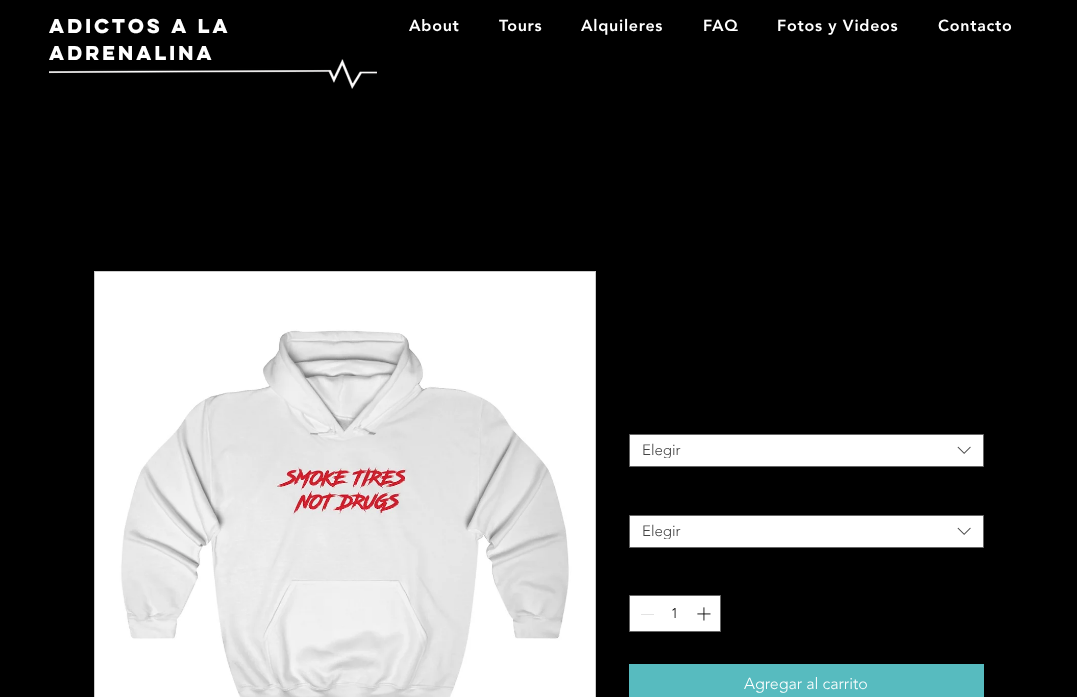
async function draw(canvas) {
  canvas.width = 1077;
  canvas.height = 697;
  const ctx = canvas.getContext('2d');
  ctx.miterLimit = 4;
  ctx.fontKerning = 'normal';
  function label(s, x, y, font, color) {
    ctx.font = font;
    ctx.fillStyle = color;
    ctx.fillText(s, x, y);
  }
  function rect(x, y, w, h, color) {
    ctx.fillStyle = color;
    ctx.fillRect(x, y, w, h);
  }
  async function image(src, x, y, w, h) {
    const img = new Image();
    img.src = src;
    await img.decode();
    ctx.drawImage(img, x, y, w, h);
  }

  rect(0, 0, 1077, 697, '#000');
  ctx.letterSpacing = '-0.9px';
  label('ADICTOS A LA', 49, 33, 'bold 18px "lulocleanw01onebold"', '#fff');
  await image('assets/img1.png', 49, 59, 328, 30);
  label('ADRENALINA', 49, 60, 'bold 18px "lulocleanw01onebold"', '#fff');
  ctx.letterSpacing = '0.75px';
  label('About', 409, 31, '900 16px "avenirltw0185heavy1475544"', '#fff');
  label('Tours', 499, 31, '900 16px "avenirltw0185heavy1475544"', '#fff');
  label('Alquileres', 581, 31, '900 16px "avenirltw0185heavy1475544"', '#fff');
  label('FAQ', 703, 31, '900 16px "avenirltw0185heavy1475544"', '#fff');
  label('Fotos y Videos', 777, 31, '900 16px "avenirltw0185heavy1475544"', '#fff');
  label('Contacto', 938, 31, '900 16px "avenirltw0185heavy1475544"', '#fff');
  ctx.strokeStyle = '#ccc';
  ctx.strokeRect(94.5, 271.5, 501, 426);
  await image('assets/img2.png', 95, 272, 500, 425);
  ctx.beginPath();
  ctx.rect(629.5, 434.5, 354, 32);
  ctx.fill();
  ctx.strokeStyle = '#666';
  ctx.stroke();
  ctx.save();
  ctx.beginPath();
  ctx.rect(642, 443, 307, 15);
  ctx.clip();
  ctx.letterSpacing = '0px';
  label('Elegir', 642, 455, '300 15px "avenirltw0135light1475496"', '#444');
  ctx.restore();
  await image('assets/img3.png', 957, 446, 14, 8);
  ctx.beginPath();
  ctx.rect(629.5, 515.5, 354, 32);
  ctx.fill();
  ctx.stroke();
  ctx.save();
  ctx.beginPath();
  ctx.rect(642, 524, 307, 15);
  ctx.clip();
  ctx.letterSpacing = '0px';
  label('Elegir', 642, 536, '300 15px "avenirltw0135light1475496"', '#444');
  ctx.restore();
  await image('assets/img3.png', 957, 527, 14, 8);
  ctx.beginPath();
  ctx.rect(629.5, 595.5, 91, 36);
  ctx.fill();
  ctx.stroke();
  rect(641, 614, 13, 1, '#e3e3e3');
  ctx.letterSpacing = '0px';
  label('1', 671, 618, '300 14px "avenirltw0135light1475496"', '#000');
  await image('assets/img4.png', 697, 607, 14, 14);
  rect(629, 664, 355, 33, '#57bbbf');
  label('Agregar al carrito', 744, 689, '300 16px "avenirltw0135light1475496"', '#fff');
}

draw(document.querySelector('canvas'));
